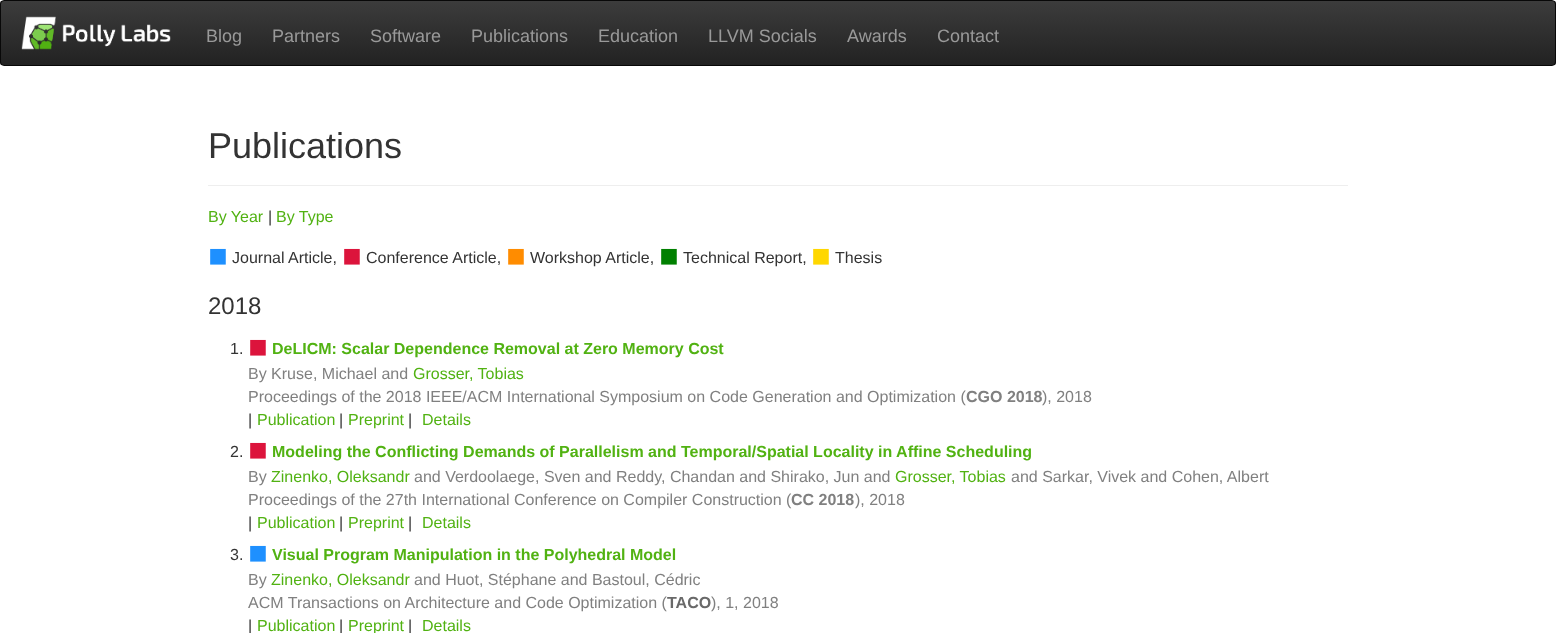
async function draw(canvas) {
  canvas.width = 1556;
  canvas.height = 633;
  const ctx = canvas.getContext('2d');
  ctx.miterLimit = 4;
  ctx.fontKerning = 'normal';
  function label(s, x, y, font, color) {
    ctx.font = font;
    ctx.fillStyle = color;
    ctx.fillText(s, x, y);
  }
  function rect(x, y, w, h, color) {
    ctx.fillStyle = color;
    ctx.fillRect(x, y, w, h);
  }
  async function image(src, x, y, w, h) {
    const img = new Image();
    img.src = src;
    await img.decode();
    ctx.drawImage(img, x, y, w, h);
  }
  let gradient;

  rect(0, 0, 1556, 633, '#fff');
  ctx.save();
  ctx.beginPath();
  ctx.roundRect(0, 0, 1556, 66, 4);
  ctx.clip();
  gradient = ctx.createLinearGradient(778, 1, 778, 65);
  gradient.addColorStop(0, '#3c3c3c');
  gradient.addColorStop(1, '#222');
  ctx.fillStyle = gradient;
  ctx.fillRect(0, 1, 1556, 64);
  ctx.restore();
  ctx.beginPath();
  ctx.roundRect(0.5, 0.5, 1555, 65, 3.5);
  ctx.strokeStyle = '#080808';
  ctx.stroke();
  await image('assets/img1.png', 21, 16, 150, 34);
  label('Blog', 206, 42, '18px Liberation Sans', '#999');
  label('Partners', 272, 42, '18px Liberation Sans', '#999');
  label('Software', 370, 42, '18px Liberation Sans', '#999');
  label('Publications', 471, 42, '18px Liberation Sans', '#999');
  label('Education', 598, 42, '18px Liberation Sans', '#999');
  label('LLVM Socials', 708, 42, '18px Liberation Sans', '#999');
  label('Awards', 847, 42, '18px Liberation Sans', '#999');
  label('Contact', 937, 42, '18px Liberation Sans', '#999');
  rect(208, 185, 1140, 1, '#eee');
  label('Publications', 208, 158, '36px Liberation Sans', '#333');
  label('By Year', 208, 222, '16px Liberation Sans', '#51b212');
  label('|', 268, 222, '16px Liberation Sans', '#333');
  label('By Type', 276, 222, '16px Liberation Sans', '#51b212');
  label('◼', 208, 263, '24px DejaVu Sans', '#1e90ff');
  label('Journal Article,', 232, 263, '16px Liberation Sans', '#333');
  label('◼', 342, 263, '24px DejaVu Sans', '#dc143c');
  label('Conference Article,', 366, 263, '16px Liberation Sans', '#333');
  label('◼', 506, 263, '24px DejaVu Sans', '#ff8c00');
  label('Workshop Article,', 530, 263, '16px Liberation Sans', '#333');
  label('◼', 659, 263, '24px DejaVu Sans', '#008000');
  label('Technical Report,', 683, 263, '16px Liberation Sans', '#333');
  label('◼', 811, 263, '24px DejaVu Sans', '#ffd700');
  label('Thesis', 835, 263, '16px Liberation Sans', '#333');
  label('2018', 208, 314, '24px Liberation Sans', '#333');
  label('1.', 230, 354, '16px Liberation Sans', '#333');
  label('◼', 248, 354, '24px DejaVu Sans', '#dc143c');
  label('DeLICM: Scalar Dependence Removal at Zero Memory Cost', 272, 354, 'bold 16px Liberation Sans', '#51b212');
  label('By Kruse, Michael and', 248, 379, '16px Liberation Sans', '#808080');
  label('Grosser, Tobias', 413, 379, '16px Liberation Sans', '#51b212');
  label('Proceedings of the 2018 IEEE/ACM International Symposium on Code Generation and Optimization (', 248, 402, '16px Liberation Sans', '#808080');
  label('CGO 2018', 966, 402, 'bold 16px Liberation Sans', '#808080');
  label('), 2018', 1042, 402, '16px Liberation Sans', '#808080');
  label('|', 248, 425, '16px Liberation Sans', '#333');
  label('Publication', 257, 425, '16px Liberation Sans', '#51b212');
  label('|', 339, 425, '16px Liberation Sans', '#333');
  label('Preprint', 348, 425, '16px Liberation Sans', '#51b212');
  label('|', 408, 425, '16px Liberation Sans', '#333');
  label('Details', 422, 425, '16px Liberation Sans', '#51b212');
  label('2.', 230, 457, '16px Liberation Sans', '#333');
  label('◼', 248, 457, '24px DejaVu Sans', '#dc143c');
  label('Modeling the Conflicting Demands of Parallelism and Temporal/Spatial Locality in Affine Scheduling', 272, 457, 'bold 16px Liberation Sans', '#51b212');
  label('By', 248, 482, '16px Liberation Sans', '#808080');
  label('Zinenko, Oleksandr', 271, 482, '16px Liberation Sans', '#51b212');
  label('and Verdoolaege, Sven and Reddy, Chandan and Shirako, Jun and', 414, 482, '16px Liberation Sans', '#808080');
  label('Grosser, Tobias', 895, 482, '16px Liberation Sans', '#51b212');
  label('and Sarkar, Vivek and Cohen, Albert', 1011, 482, '16px Liberation Sans', '#808080');
  label('Proceedings of the 27th International Conference on Compiler Construction (', 248, 505, '16px Liberation Sans', '#808080');
  label('CC 2018', 791, 505, 'bold 16px Liberation Sans', '#808080');
  label('), 2018', 855, 505, '16px Liberation Sans', '#808080');
  label('|', 248, 528, '16px Liberation Sans', '#333');
  label('Publication', 257, 528, '16px Liberation Sans', '#51b212');
  label('|', 339, 528, '16px Liberation Sans', '#333');
  label('Preprint', 348, 528, '16px Liberation Sans', '#51b212');
  label('|', 408, 528, '16px Liberation Sans', '#333');
  label('Details', 422, 528, '16px Liberation Sans', '#51b212');
  label('3.', 230, 560, '16px Liberation Sans', '#333');
  label('◼', 248, 560, '24px DejaVu Sans', '#1e90ff');
  label('Visual Program Manipulation in the Polyhedral Model', 272, 560, 'bold 16px Liberation Sans', '#51b212');
  label('By', 248, 585, '16px Liberation Sans', '#808080');
  label('Zinenko, Oleksandr', 271, 585, '16px Liberation Sans', '#51b212');
  label('and Huot, Stéphane and Bastoul, Cédric', 414, 585, '16px Liberation Sans', '#808080');
  label('ACM Transactions on Architecture and Code Optimization (', 248, 608, '16px Liberation Sans', '#808080');
  label('TACO', 667, 608, 'bold 16px Liberation Sans', '#696969');
  label('), 1, 2018', 711, 608, '16px Liberation Sans', '#808080');
  label('|', 248, 631, '16px Liberation Sans', '#333');
  label('Publication', 257, 631, '16px Liberation Sans', '#51b212');
  label('|', 339, 631, '16px Liberation Sans', '#333');
  label('Preprint', 348, 631, '16px Liberation Sans', '#51b212');
  label('|', 408, 631, '16px Liberation Sans', '#333');
  label('Details', 422, 631, '16px Liberation Sans', '#51b212');
}

draw(document.querySelector('canvas'));
